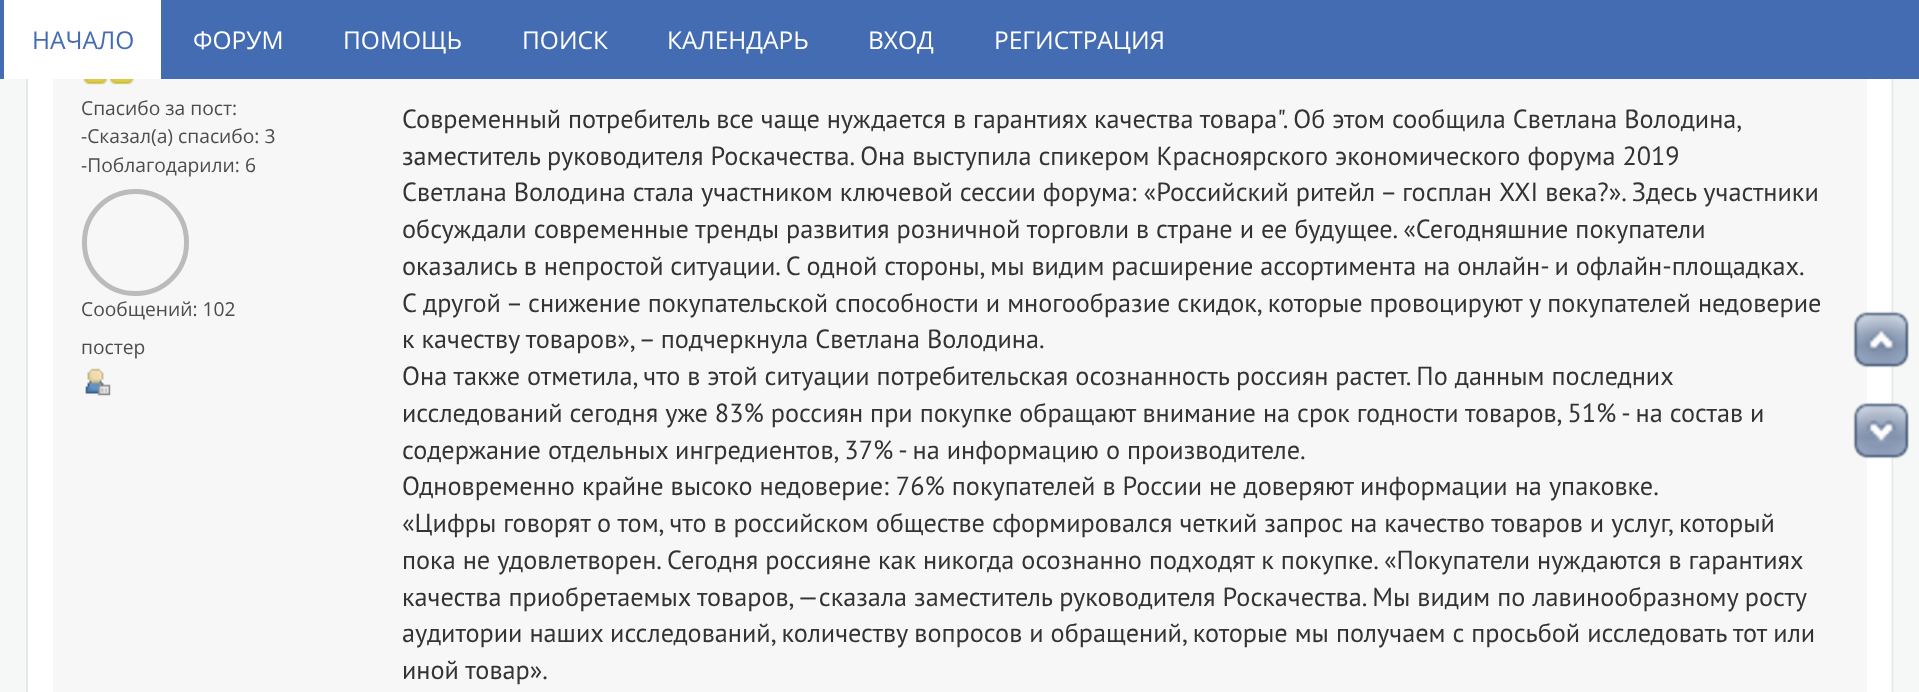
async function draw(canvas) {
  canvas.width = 1919;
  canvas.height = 692;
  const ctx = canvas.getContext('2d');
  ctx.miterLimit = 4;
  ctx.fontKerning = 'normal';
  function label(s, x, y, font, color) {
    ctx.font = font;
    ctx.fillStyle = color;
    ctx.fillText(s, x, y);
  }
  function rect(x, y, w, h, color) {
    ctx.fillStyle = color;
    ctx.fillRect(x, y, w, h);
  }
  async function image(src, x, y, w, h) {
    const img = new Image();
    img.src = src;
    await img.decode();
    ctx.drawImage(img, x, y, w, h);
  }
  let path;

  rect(0, 0, 1919, 692, '#f6f8f8');
  rect(26, 79, 1868, 613, '#fff');
  path = new Path2D('M1890-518C1891.5-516 1892.5-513.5 1892.5-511V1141C1892.5 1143.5 1891.5 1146 1890 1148');
  ctx.strokeStyle = '#e7e6e6';
  ctx.lineWidth = 1.8;
  ctx.stroke(path);
  path = new Path2D('M30 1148C28 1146 27 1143.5 27 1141V-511C27-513.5 28-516 30-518');
  ctx.stroke(path);
  rect(0, 0, 1919, 79, '#446cb3');
  rect(4, 0, 157, 79, '#fff');
  label('НАЧАЛО', 32, 49, '24.5px Open Sans', '#446cb3');
  label('ФОРУМ', 193, 49, '24.5px Open Sans', '#fff');
  label('ПОМОЩЬ', 343, 49, '24.5px Open Sans', '#fff');
  label('ПОИСК', 522, 49, '24.5px Open Sans', '#fff');
  label('КАЛЕНДАРЬ', 667, 49, '24.5px Open Sans', '#fff');
  label('ВХОД', 868, 49, '24.5px Open Sans', '#fff');
  label('РЕГИСТРАЦИЯ', 994, 49, '24.5px Open Sans', '#fff');
  rect(53, 79, 1814, 613, '#f7f7f7');
  await image('assets/img1.png', 83, 79, 25, 6);
  await image('assets/img2.png', 109, 79, 25, 6);
  label('Спасибо за пост:', 81, 115, '19.25px Open Sans', '#4c4c4c');
  label('-Сказал(а) спасибо: 3', 81, 143, '19.25px Open Sans', '#4c4c4c');
  label('-Поблагодарили: 6', 81, 172, '19.25px Open Sans', '#4c4c4c');
  ctx.beginPath();
  ctx.roundRect(84.5, 191.5, 102, 102, 50.5);
  ctx.strokeStyle = '#bbb';
  ctx.lineWidth = 5;
  ctx.stroke();
  label('Сообщений: 102', 81, 316, '19.25px Open Sans', '#4c4c4c');
  label('постер', 81, 354, '19.25px Open Sans', '#4c4c4c');
  await image('assets/img3.png', 85, 368, 26, 28);
  ctx.wordSpacing = '-0.1px';
  label('Современный потребитель все чаще нуждается в гарантиях качества товара". Об этом сообщила Светлана Володина,', 402, 128, '26.25px PT Sans', '#333');
  ctx.wordSpacing = '0px';
  label('заместитель руководителя Роскачества. Она выступила спикером Красноярского экономического форума 2019', 402, 165, '26.25px PT Sans', '#333');
  label('Светлана Володина стала участником ключевой сессии форума: «Российский ритейл – госплан XXI века?». Здесь участники', 402, 201, '26.25px PT Sans', '#333');
  label('обсуждали современные тренды развития розничной торговли в стране и ее будущее. «Сегодняшние покупатели', 402, 238, '26.25px PT Sans', '#333');
  ctx.wordSpacing = '-0.1px';
  label('оказались в непростой ситуации. С одной стороны, мы видим расширение ассортимента на онлайн- и офлайн-площадках.', 402, 275, '26.25px PT Sans', '#333');
  ctx.wordSpacing = '0px';
  label('С другой – снижение покупательской способности и многообразие скидок, которые провоцируют у покупателей недоверие', 402, 312, '26.25px PT Sans', '#333');
  label('к качеству товаров», – подчеркнула Светлана Володина.', 402, 348, '26.25px PT Sans', '#333');
  label('Она также отметила, что в этой ситуации потребительская осознанность россиян растет. По данным последних', 402, 385, '26.25px PT Sans', '#333');
  label('исследований сегодня уже 83% россиян при покупке обращают внимание на срок годности товаров, 51% - на состав и', 402, 422, '26.25px PT Sans', '#333');
  label('содержание отдельных ингредиентов, 37% - на информацию о производителе.', 402, 459, '26.25px PT Sans', '#333');
  label('Одновременно крайне высоко недоверие: 76% покупателей в России не доверяют информации на упаковке.', 402, 495, '26.25px PT Sans', '#333');
  label('«Цифры говорят о том, что в российском обществе сформировался четкий запрос на качество товаров и услуг, который', 402, 532, '26.25px PT Sans', '#333');
  label('пока не удовлетворен. Сегодня россияне как никогда осознанно подходят к покупке. «Покупатели нуждаются в гарантиях', 402, 569, '26.25px PT Sans', '#333');
  label('качества приобретаемых товаров, —сказала заместитель руководителя Роскачества. Мы видим по лавинообразному росту', 402, 606, '26.25px PT Sans', '#333');
  label('аудитории наших исследований, количеству вопросов и обращений, которые мы получаем с просьбой исследовать тот или', 402, 642, '26.25px PT Sans', '#333');
  label('иной товар».', 402, 679, '26.25px PT Sans', '#333');
  await image('assets/img4.png', 1853, 312, 56, 56);
  await image('assets/img5.png', 1853, 311, 56, 57);
  await image('assets/img6.png', 1853, 403, 56, 56);
  await image('assets/img7.png', 1853, 402, 56, 57);
}

draw(document.querySelector('canvas'));
